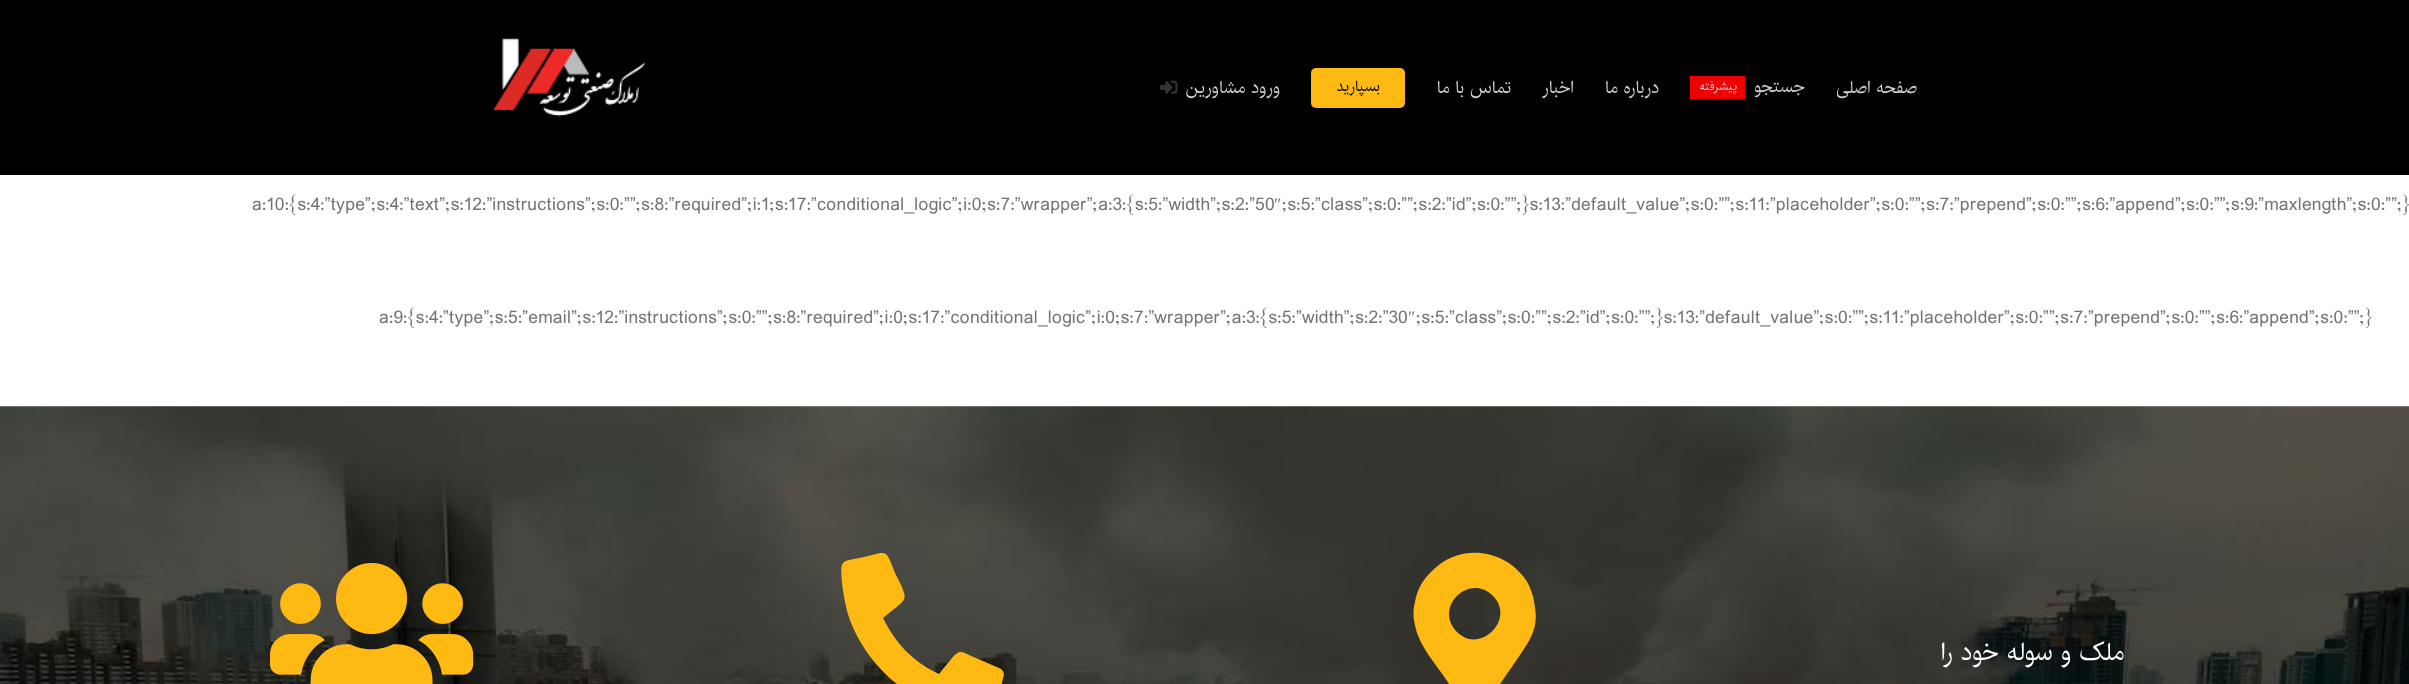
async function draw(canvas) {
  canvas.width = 2409;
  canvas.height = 684;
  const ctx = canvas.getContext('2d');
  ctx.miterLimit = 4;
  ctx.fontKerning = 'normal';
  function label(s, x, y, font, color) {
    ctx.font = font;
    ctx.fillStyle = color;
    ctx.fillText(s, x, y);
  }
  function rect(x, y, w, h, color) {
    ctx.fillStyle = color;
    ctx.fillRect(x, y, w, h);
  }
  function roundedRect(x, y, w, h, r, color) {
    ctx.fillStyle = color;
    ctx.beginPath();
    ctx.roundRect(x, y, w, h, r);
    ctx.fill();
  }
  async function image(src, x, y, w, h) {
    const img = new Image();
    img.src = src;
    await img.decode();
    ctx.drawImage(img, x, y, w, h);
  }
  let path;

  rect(0, 0, 2409, 684, '#fff');
  rect(0, 0, 2409, 175, '#000');
  await image('assets/img1.png', 492, 38, 153, 79);
  await image('assets/img2.png', 1160, 80, 18, 14);
  ctx.direction = 'rtl';
  label('ورود مشاورین', 1280, 93, '17.5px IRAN', '#cfcfcf');
  roundedRect(1311, 68, 94, 40, 5, '#feba12');
  label('بسپارید', 1380, 91, '15px IRAN', '#000');
  label('تماس با ما', 1511, 93, '17.5px IRAN', '#cfcfcf');
  label('اخبار', 1574, 93, '17.5px IRAN', '#cfcfcf');
  label('درباره ما', 1659, 93, '17.5px IRAN', '#cfcfcf');
  rect(1690, 76, 55, 23, '#ef0000');
  label('پیشرفته', 1737, 90, '12px IRAN', '#cfcfcf');
  label('جستجو', 1805, 92, '17.5px IRAN', '#cfcfcf');
  label('صفحه اصلی', 1917, 93, '17.5px IRAN', '#cfcfcf');
  ctx.direction = 'ltr';
  label('a:10:{s:4:”type”;s:4:”text”;s:12:”instructions”;s:0:””;s:8:”required”;i:1;s:17:”conditional_logic”;i:0;s:7:”wrapper”;a:3:{s:5:”width”;s:2:”50', 252, 210, '17.5px IRAN', '#747474');
  label('″', 1274, 210, '17.5px Liberation Serif', '#747474');
  label(';s:5:”class”;s:0:””;s:2:”id”;s:0:””;}s:13:”default_value”;s:0:””;s:11:”placeholder”;s:0:””;s:7:”prepend”;s:0:””;s:6:”append”;s:0:””;s:9:”maxlength”;s:0:””;}', 1282, 210, '17.5px IRAN', '#747474');
  label('a:9:{s:4:”type”;s:5:”email”;s:12:”instructions”;s:0:””;s:8:”required”;i:0;s:17:”conditional_logic”;i:0;s:7:”wrapper”;a:3:{s:5:”width”;s:2:”30', 379, 323, '17.5px IRAN', '#747474');
  label('″', 1408, 323, '17.5px Liberation Serif', '#747474');
  label(';s:5:”class”;s:0:””;s:2:”id”;s:0:””;}s:13:”default_value”;s:0:””;s:11:”placeholder”;s:0:””;s:7:”prepend”;s:0:””;s:6:”append”;s:0:””;}', 1416, 323, '17.5px IRAN', '#747474');
  await image('assets/img3.png', 0, 406, 2409, 278);
  await image('assets/img4.png', 270, 563, 204, 121);
  ctx.fillStyle = '#feba12';
  path = new Path2D('M999 668C1002 669 1004 672 1004 675L998 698C997 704 997 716 989 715C976 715 971 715 959 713C907 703 862 662 847 611C845 602 843 593 842 583C840 558 841 562 864 557C889 551 885 548 896 575L902 587C905 596 907 598 899 605L883 618C895 643 913 662 939 674L952 658C959 650 961 651 969 655Z');
  ctx.fill(path);
  path = new Path2D('M1468 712L1443 675C1433 661 1418 643 1415 625C1413 618 1413 609 1415 602C1417 590 1423 579 1432 571C1459 543 1504 548 1526 580C1531 588 1534 598 1535 608C1536 613 1536 620 1535 625C1533 636 1526 646 1520 655L1498 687C1495 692 1482 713 1478 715C1475 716 1471 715 1468 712ZM1457 632C1480 655 1516 619 1493 596C1469 572 1433 608 1457 632Z');
  ctx.fill(path);
  ctx.direction = 'rtl';
  label('ملک و سوله خود را', 2124, 660, '25px IRAN', '#fff');
}

draw(document.querySelector('canvas'));
